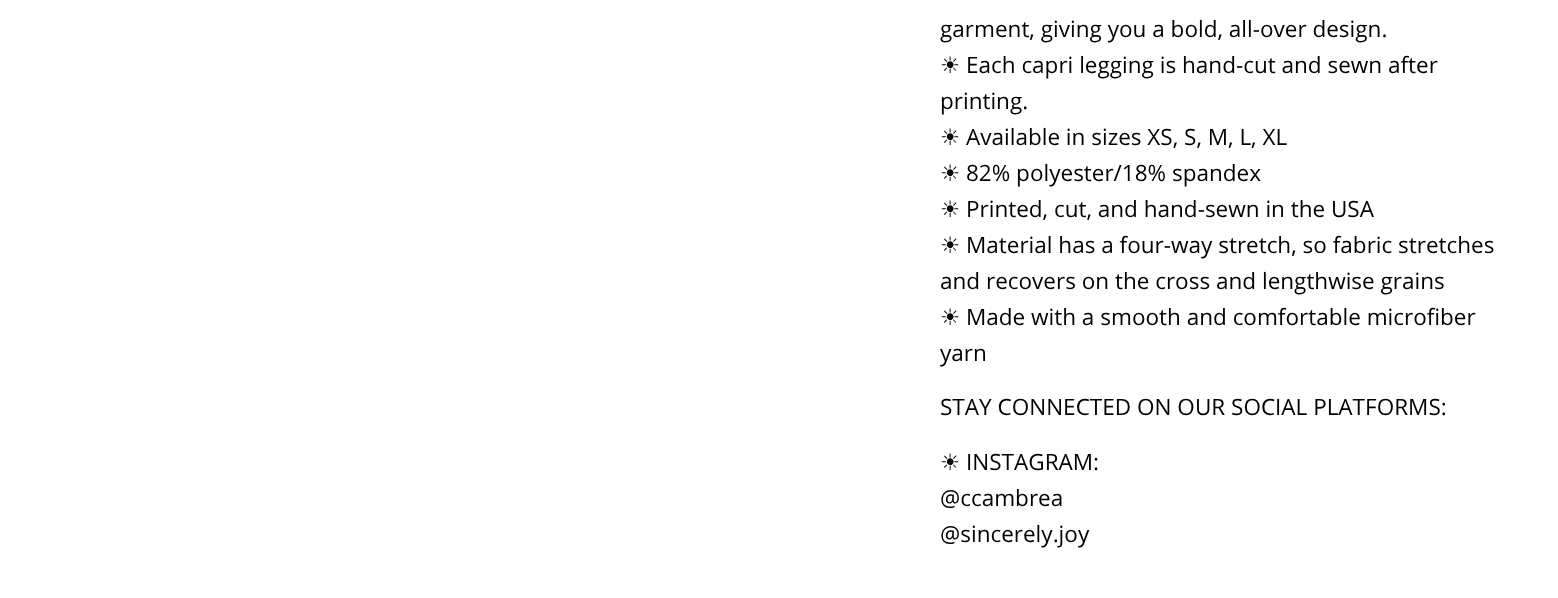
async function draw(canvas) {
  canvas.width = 1558;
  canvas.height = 598;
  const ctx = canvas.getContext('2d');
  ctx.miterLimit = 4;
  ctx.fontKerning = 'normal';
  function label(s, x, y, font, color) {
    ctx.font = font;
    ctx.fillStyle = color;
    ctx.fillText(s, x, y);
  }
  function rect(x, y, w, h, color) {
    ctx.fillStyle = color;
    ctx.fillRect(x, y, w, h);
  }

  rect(0, 0, 1558, 598, '#fff');
  label('garment, giving you a bold, all-over design.', 940, 37, '22.5px Open Sans', '#000');
  label('☀︎', 940, 73, '22.5px DejaVu Sans', '#000');
  label('Each capri legging is hand-cut and sewn after', 966, 73, '22.5px Open Sans', '#000');
  label('printing.', 940, 109, '22.5px Open Sans', '#000');
  label('☀︎', 940, 145, '22.5px DejaVu Sans', '#000');
  label('Available in sizes XS, S, M, L, XL', 966, 145, '22.5px Open Sans', '#000');
  label('☀︎', 940, 181, '22.5px DejaVu Sans', '#000');
  label('82% polyester/18% spandex', 966, 181, '22.5px Open Sans', '#000');
  label('☀︎', 940, 217, '22.5px DejaVu Sans', '#000');
  label('Printed, cut, and hand-sewn in the USA', 966, 217, '22.5px Open Sans', '#000');
  label('☀︎', 940, 253, '22.5px DejaVu Sans', '#000');
  label('Material has a four-way stretch, so fabric stretches', 966, 253, '22.5px Open Sans', '#000');
  label('and recovers on the cross and lengthwise grains', 940, 289, '22.5px Open Sans', '#000');
  label('☀︎', 940, 325, '22.5px DejaVu Sans', '#000');
  label('Made with a smooth and comfortable microfiber', 966, 325, '22.5px Open Sans', '#000');
  label('yarn', 940, 361, '22.5px Open Sans', '#000');
  label('STAY CONNECTED ON OUR SOCIAL PLATFORMS:', 940, 415, '22.5px Open Sans', '#000');
  label('☀︎', 940, 470, '22.5px DejaVu Sans', '#000');
  label('INSTAGRAM:', 966, 470, '22.5px Open Sans', '#000');
  label('@ccambrea', 940, 506, '22.5px Open Sans', '#000');
  label('@sincerely.joy', 940, 542, '22.5px Open Sans', '#000');
}

draw(document.querySelector('canvas'));
